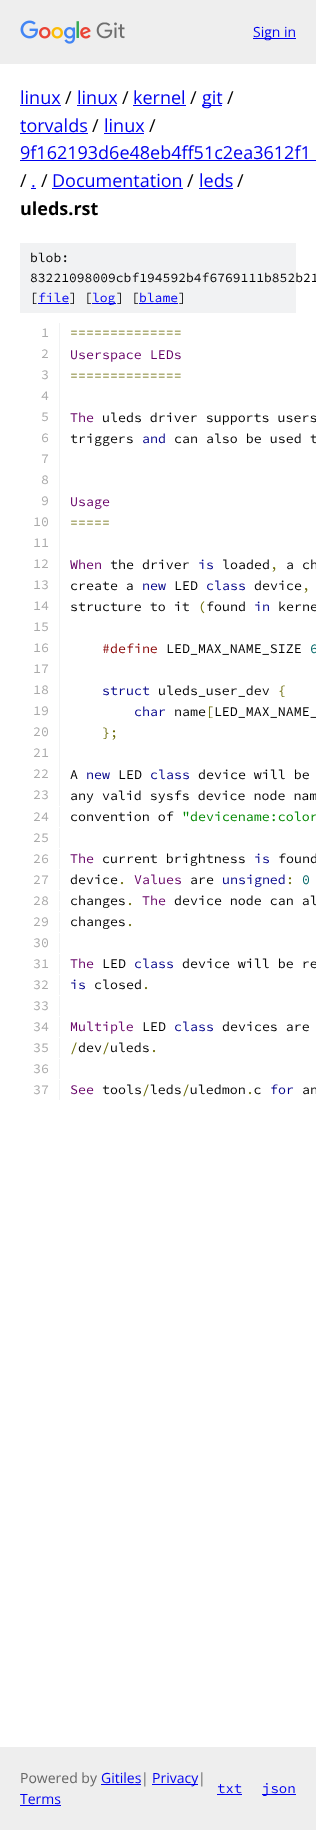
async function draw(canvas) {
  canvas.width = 316;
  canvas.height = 1830;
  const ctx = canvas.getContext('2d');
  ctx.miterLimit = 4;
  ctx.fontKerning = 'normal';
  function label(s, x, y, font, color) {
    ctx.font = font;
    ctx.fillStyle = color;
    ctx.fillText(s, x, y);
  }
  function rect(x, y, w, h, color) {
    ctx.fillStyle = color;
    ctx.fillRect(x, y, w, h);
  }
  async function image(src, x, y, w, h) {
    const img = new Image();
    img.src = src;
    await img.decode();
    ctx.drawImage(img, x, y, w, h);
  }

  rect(0, 0, 316, 1830, '#fff');
  rect(0, 0, 316, 64, '#eee');
  await image('assets/img1.png', 20, 20, 105, 24);
  rect(253, 38, 43, 1, '#00e');
  label('Sign in', 253, 37, '14px Open Sans', '#00e');
  label('linux', 20, 104, '18px Open Sans', '#00e');
  rect(20, 105, 41, 1, '#00e');
  label('/', 65, 104, '18px Open Sans', '#000');
  label('linux', 77, 104, '18px Open Sans', '#00e');
  rect(77, 105, 40, 1, '#00e');
  label('/', 122, 104, '18px Open Sans', '#000');
  label('kernel', 133, 104, '18px Open Sans', '#00e');
  rect(133, 105, 53, 1, '#00e');
  label('/', 190, 104, '18px Open Sans', '#000');
  rect(202, 105, 20, 1, '#00e');
  label('git', 202, 104, '18px Open Sans', '#00e');
  label('/', 227, 104, '18px Open Sans', '#000');
  label('torvalds', 20, 132, '18px Open Sans', '#00e');
  rect(20, 133, 68, 1, '#00e');
  label('/', 92, 132, '18px Open Sans', '#000');
  label('linux', 104, 132, '18px Open Sans', '#00e');
  rect(104, 133, 40, 1, '#00e');
  label('/', 149, 132, '18px Open Sans', '#000');
  label('9f162193d6e48eb4ff51c2ea3612f1', 20, 159, '18px Open Sans', '#00e');
  rect(20, 160, 296, 1, '#00e');
  label('/', 20, 187, '18px Open Sans', '#000');
  label('.', 31, 187, '18px Open Sans', '#00e');
  rect(31, 188, 5, 1, '#00e');
  label('/', 41, 187, '18px Open Sans', '#000');
  label('Documentation', 52, 187, '18px Open Sans', '#00e');
  rect(52, 188, 131, 1, '#00e');
  label('/', 187, 187, '18px Open Sans', '#000');
  label('leds', 199, 187, '18px Open Sans', '#00e');
  rect(199, 188, 34, 1, '#00e');
  label('/', 237, 187, '18px Open Sans', '#000');
  label('uleds.rst', 20, 215, 'bold 18px Open Sans', '#000');
  rect(20, 243, 276, 70, '#f1f2f3');
  label('blob:', 30, 262, '200 13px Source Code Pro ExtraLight', '#000');
  label('83221098009cbf194592b4f6769111b852b21', 30, 282, '200 13px Source Code Pro ExtraLight', '#000');
  label('[', 30, 302, '200 13px Source Code Pro ExtraLight', '#000');
  label('file', 38, 302, '200 13px Source Code Pro ExtraLight', '#00e');
  rect(38, 303, 31, 1, '#00e');
  label('] [', 69, 302, '200 13px Source Code Pro ExtraLight', '#000');
  rect(92, 303, 24, 1, '#00e');
  label('log', 92, 302, '200 13px Source Code Pro ExtraLight', '#00e');
  label('] [', 116, 302, '200 13px Source Code Pro ExtraLight', '#000');
  label('blame', 139, 302, '200 13px Source Code Pro ExtraLight', '#00e');
  rect(139, 303, 39, 1, '#00e');
  label(']', 178, 302, '200 13px Source Code Pro ExtraLight', '#000');
  rect(59, 323, 1, 483, '#f1f2f3');
  label('1', 41, 337, '200 13.3px Source Code Pro ExtraLight', '#aaa');
  label('==============', 70, 337, '200 13.3px Source Code Pro ExtraLight', '#660');
  label('2', 41, 358, '200 13.3px Source Code Pro ExtraLight', '#aaa');
  label('Userspace LEDs', 70, 359, '200 13.3px Source Code Pro ExtraLight', '#606');
  label('3', 41, 379, '200 13.3px Source Code Pro ExtraLight', '#aaa');
  label('==============', 70, 380, '200 13.3px Source Code Pro ExtraLight', '#660');
  label('4', 41, 400, '200 13.3px Source Code Pro ExtraLight', '#aaa');
  label('5', 41, 421, '200 13.3px Source Code Pro ExtraLight', '#aaa');
  label('The', 70, 422, '200 13.3px Source Code Pro ExtraLight', '#606');
  label('uleds driver supports users', 102, 422, '200 13.3px Source Code Pro ExtraLight', '#000');
  label('6', 41, 442, '200 13.3px Source Code Pro ExtraLight', '#aaa');
  label('triggers', 70, 443, '200 13.3px Source Code Pro ExtraLight', '#000');
  label('and', 142, 443, '200 13.3px Source Code Pro ExtraLight', '#008');
  label('can also be used t', 174, 443, '200 13.3px Source Code Pro ExtraLight', '#000');
  label('7', 41, 463, '200 13.3px Source Code Pro ExtraLight', '#aaa');
  label('8', 41, 484, '200 13.3px Source Code Pro ExtraLight', '#aaa');
  label('9', 41, 505, '200 13.3px Source Code Pro ExtraLight', '#aaa');
  label('Usage', 70, 506, '200 13.3px Source Code Pro ExtraLight', '#606');
  label('10', 33, 526, '200 13.3px Source Code Pro ExtraLight', '#aaa');
  label('=====', 70, 527, '200 13.3px Source Code Pro ExtraLight', '#660');
  label('11', 33, 547, '200 13.3px Source Code Pro ExtraLight', '#aaa');
  label('12', 33, 568, '200 13.3px Source Code Pro ExtraLight', '#aaa');
  label('When', 70, 569, '200 13.3px Source Code Pro ExtraLight', '#606');
  label('the driver', 110, 569, '200 13.3px Source Code Pro ExtraLight', '#000');
  label('is', 198, 569, '200 13.3px Source Code Pro ExtraLight', '#008');
  label('loaded', 222, 569, '200 13.3px Source Code Pro ExtraLight', '#000');
  label(',', 270, 569, '200 13.3px Source Code Pro ExtraLight', '#660');
  label('a ch', 286, 569, '200 13.3px Source Code Pro ExtraLight', '#000');
  label('13', 33, 589, '200 13.3px Source Code Pro ExtraLight', '#aaa');
  label('create a', 70, 590, '200 13.3px Source Code Pro ExtraLight', '#000');
  label('new', 142, 590, '200 13.3px Source Code Pro ExtraLight', '#008');
  label('LED', 174, 590, '200 13.3px Source Code Pro ExtraLight', '#000');
  label('class', 206, 590, '200 13.3px Source Code Pro ExtraLight', '#008');
  label('device', 254, 590, '200 13.3px Source Code Pro ExtraLight', '#000');
  label(',', 302, 590, '200 13.3px Source Code Pro ExtraLight', '#660');
  label('14', 33, 610, '200 13.3px Source Code Pro ExtraLight', '#aaa');
  label('structure to it', 70, 611, '200 13.3px Source Code Pro ExtraLight', '#000');
  label('(', 198, 611, '200 13.3px Source Code Pro ExtraLight', '#660');
  label('found', 206, 611, '200 13.3px Source Code Pro ExtraLight', '#000');
  label('in', 254, 611, '200 13.3px Source Code Pro ExtraLight', '#008');
  label('kerne', 278, 611, '200 13.3px Source Code Pro ExtraLight', '#000');
  label('15', 33, 631, '200 13.3px Source Code Pro ExtraLight', '#aaa');
  label('16', 33, 652, '200 13.3px Source Code Pro ExtraLight', '#aaa');
  label('#define', 102, 653, '200 13.3px Source Code Pro ExtraLight', '#800');
  label('LED_MAX_NAME_SIZE', 166, 653, '200 13.3px Source Code Pro ExtraLight', '#000');
  label('6', 310, 653, '200 13.3px Source Code Pro ExtraLight', '#066');
  label('17', 33, 673, '200 13.3px Source Code Pro ExtraLight', '#aaa');
  label('18', 33, 694, '200 13.3px Source Code Pro ExtraLight', '#aaa');
  label('struct', 102, 695, '200 13.3px Source Code Pro ExtraLight', '#008');
  label('uleds_user_dev', 158, 695, '200 13.3px Source Code Pro ExtraLight', '#000');
  label('{', 278, 695, '200 13.3px Source Code Pro ExtraLight', '#660');
  label('19', 33, 715, '200 13.3px Source Code Pro ExtraLight', '#aaa');
  label('char', 134, 716, '200 13.3px Source Code Pro ExtraLight', '#008');
  label('name LED_MAX_NAME_', 174, 716, '200 13.3px Source Code Pro ExtraLight', '#000');
  label('[', 206, 716, '200 13.3px Source Code Pro ExtraLight', '#660');
  label('20', 33, 736, '200 13.3px Source Code Pro ExtraLight', '#aaa');
  label('};', 102, 737, '200 13.3px Source Code Pro ExtraLight', '#660');
  label('21', 33, 757, '200 13.3px Source Code Pro ExtraLight', '#aaa');
  label('22', 33, 778, '200 13.3px Source Code Pro ExtraLight', '#aaa');
  label('A', 70, 779, '200 13.3px Source Code Pro ExtraLight', '#000');
  label('new', 86, 779, '200 13.3px Source Code Pro ExtraLight', '#008');
  label('LED', 118, 779, '200 13.3px Source Code Pro ExtraLight', '#000');
  label('class', 150, 779, '200 13.3px Source Code Pro ExtraLight', '#008');
  label('device will be', 198, 779, '200 13.3px Source Code Pro ExtraLight', '#000');
  label('23', 33, 799, '200 13.3px Source Code Pro ExtraLight', '#aaa');
  label('any valid sysfs device node nam', 70, 800, '200 13.3px Source Code Pro ExtraLight', '#000');
  rect(59, 807, 1, 20, '#f1f2f3');
  label('24', 33, 821, '200 13.3px Source Code Pro ExtraLight', '#aaa');
  label('convention of', 70, 821, '200 13.3px Source Code Pro ExtraLight', '#000');
  label('"devicename:color', 182, 821, '200 13.3px Source Code Pro ExtraLight', '#080');
  rect(59, 828, 1, 20, '#f1f2f3');
  label('25', 33, 842, '200 13.3px Source Code Pro ExtraLight', '#aaa');
  rect(59, 849, 1, 20, '#f1f2f3');
  label('26', 33, 863, '200 13.3px Source Code Pro ExtraLight', '#aaa');
  label('The', 70, 863, '200 13.3px Source Code Pro ExtraLight', '#606');
  label('current brightness', 102, 863, '200 13.3px Source Code Pro ExtraLight', '#000');
  label('is', 254, 863, '200 13.3px Source Code Pro ExtraLight', '#008');
  label('found', 278, 863, '200 13.3px Source Code Pro ExtraLight', '#000');
  rect(59, 870, 1, 20, '#f1f2f3');
  label('27', 33, 884, '200 13.3px Source Code Pro ExtraLight', '#aaa');
  label('device', 70, 884, '200 13.3px Source Code Pro ExtraLight', '#000');
  label('.', 118, 884, '200 13.3px Source Code Pro ExtraLight', '#660');
  label('Values', 134, 884, '200 13.3px Source Code Pro ExtraLight', '#606');
  label('are', 190, 884, '200 13.3px Source Code Pro ExtraLight', '#000');
  label('unsigned', 222, 884, '200 13.3px Source Code Pro ExtraLight', '#008');
  label(':', 286, 884, '200 13.3px Source Code Pro ExtraLight', '#660');
  label('0', 302, 884, '200 13.3px Source Code Pro ExtraLight', '#066');
  rect(59, 891, 1, 20, '#f1f2f3');
  label('28', 33, 905, '200 13.3px Source Code Pro ExtraLight', '#aaa');
  label('changes', 70, 905, '200 13.3px Source Code Pro ExtraLight', '#000');
  label('.', 126, 905, '200 13.3px Source Code Pro ExtraLight', '#660');
  label('The', 142, 905, '200 13.3px Source Code Pro ExtraLight', '#606');
  label('device node can al', 174, 905, '200 13.3px Source Code Pro ExtraLight', '#000');
  rect(59, 912, 1, 20, '#f1f2f3');
  label('29', 33, 926, '200 13.3px Source Code Pro ExtraLight', '#aaa');
  label('changes', 70, 926, '200 13.3px Source Code Pro ExtraLight', '#000');
  label('.', 126, 926, '200 13.3px Source Code Pro ExtraLight', '#660');
  rect(59, 933, 1, 20, '#f1f2f3');
  label('30', 33, 947, '200 13.3px Source Code Pro ExtraLight', '#aaa');
  rect(59, 954, 1, 20, '#f1f2f3');
  label('31', 33, 968, '200 13.3px Source Code Pro ExtraLight', '#aaa');
  label('The', 70, 968, '200 13.3px Source Code Pro ExtraLight', '#606');
  label('LED', 102, 968, '200 13.3px Source Code Pro ExtraLight', '#000');
  label('class', 134, 968, '200 13.3px Source Code Pro ExtraLight', '#008');
  label('device will be re', 182, 968, '200 13.3px Source Code Pro ExtraLight', '#000');
  rect(59, 975, 1, 20, '#f1f2f3');
  label('32', 33, 989, '200 13.3px Source Code Pro ExtraLight', '#aaa');
  label('is', 70, 989, '200 13.3px Source Code Pro ExtraLight', '#008');
  label('closed', 94, 989, '200 13.3px Source Code Pro ExtraLight', '#000');
  label('.', 142, 989, '200 13.3px Source Code Pro ExtraLight', '#660');
  rect(59, 996, 1, 20, '#f1f2f3');
  label('33', 33, 1010, '200 13.3px Source Code Pro ExtraLight', '#aaa');
  rect(59, 1017, 1, 20, '#f1f2f3');
  label('34', 33, 1031, '200 13.3px Source Code Pro ExtraLight', '#aaa');
  label('Multiple', 70, 1031, '200 13.3px Source Code Pro ExtraLight', '#606');
  label('LED', 142, 1031, '200 13.3px Source Code Pro ExtraLight', '#000');
  label('class', 174, 1031, '200 13.3px Source Code Pro ExtraLight', '#008');
  label('devices are', 222, 1031, '200 13.3px Source Code Pro ExtraLight', '#000');
  rect(59, 1038, 1, 20, '#f1f2f3');
  label('35', 33, 1052, '200 13.3px Source Code Pro ExtraLight', '#aaa');
  label('/', 70, 1052, '200 13.3px Source Code Pro ExtraLight', '#660');
  label('dev uleds', 78, 1052, '200 13.3px Source Code Pro ExtraLight', '#000');
  label('/', 102, 1052, '200 13.3px Source Code Pro ExtraLight', '#660');
  label('.', 150, 1052, '200 13.3px Source Code Pro ExtraLight', '#660');
  rect(59, 1059, 1, 20, '#f1f2f3');
  label('36', 33, 1073, '200 13.3px Source Code Pro ExtraLight', '#aaa');
  rect(59, 1080, 1, 20, '#f1f2f3');
  label('37', 33, 1094, '200 13.3px Source Code Pro ExtraLight', '#aaa');
  label('tools leds uledmon c', 102, 1094, '200 13.3px Source Code Pro ExtraLight', '#000');
  label('See', 70, 1094, '200 13.3px Source Code Pro ExtraLight', '#606');
  label('/', 142, 1094, '200 13.3px Source Code Pro ExtraLight', '#660');
  label('/', 182, 1094, '200 13.3px Source Code Pro ExtraLight', '#660');
  label('.', 246, 1094, '200 13.3px Source Code Pro ExtraLight', '#660');
  label('for', 270, 1094, '200 13.3px Source Code Pro ExtraLight', '#008');
  label('an', 302, 1094, '200 13.3px Source Code Pro ExtraLight', '#000');
  rect(0, 1747, 316, 83, '#eee');
  label('Powered by', 20, 1783, '14px Open Sans', '#666');
  label('Gitiles', 101, 1783, '14px Open Sans', '#00e');
  rect(101, 1784, 40, 1, '#00e');
  label('|', 141, 1783, '14px Open Sans', '#666');
  rect(152, 1784, 46, 1, '#00e');
  label('Privacy', 152, 1783, '14px Open Sans', '#00e');
  label('|', 198, 1783, '14px Open Sans', '#666');
  label('Terms', 20, 1804, '14px Open Sans', '#00e');
  rect(20, 1805, 41, 1, '#00e');
  label('txt', 217, 1793, '200 14px Source Code Pro ExtraLight', '#00e');
  rect(217, 1794, 25, 1, '#00e');
  rect(262, 1794, 34, 1, '#00e');
  label('json', 262, 1793, '200 14px Source Code Pro ExtraLight', '#00e');
}

draw(document.querySelector('canvas'));
